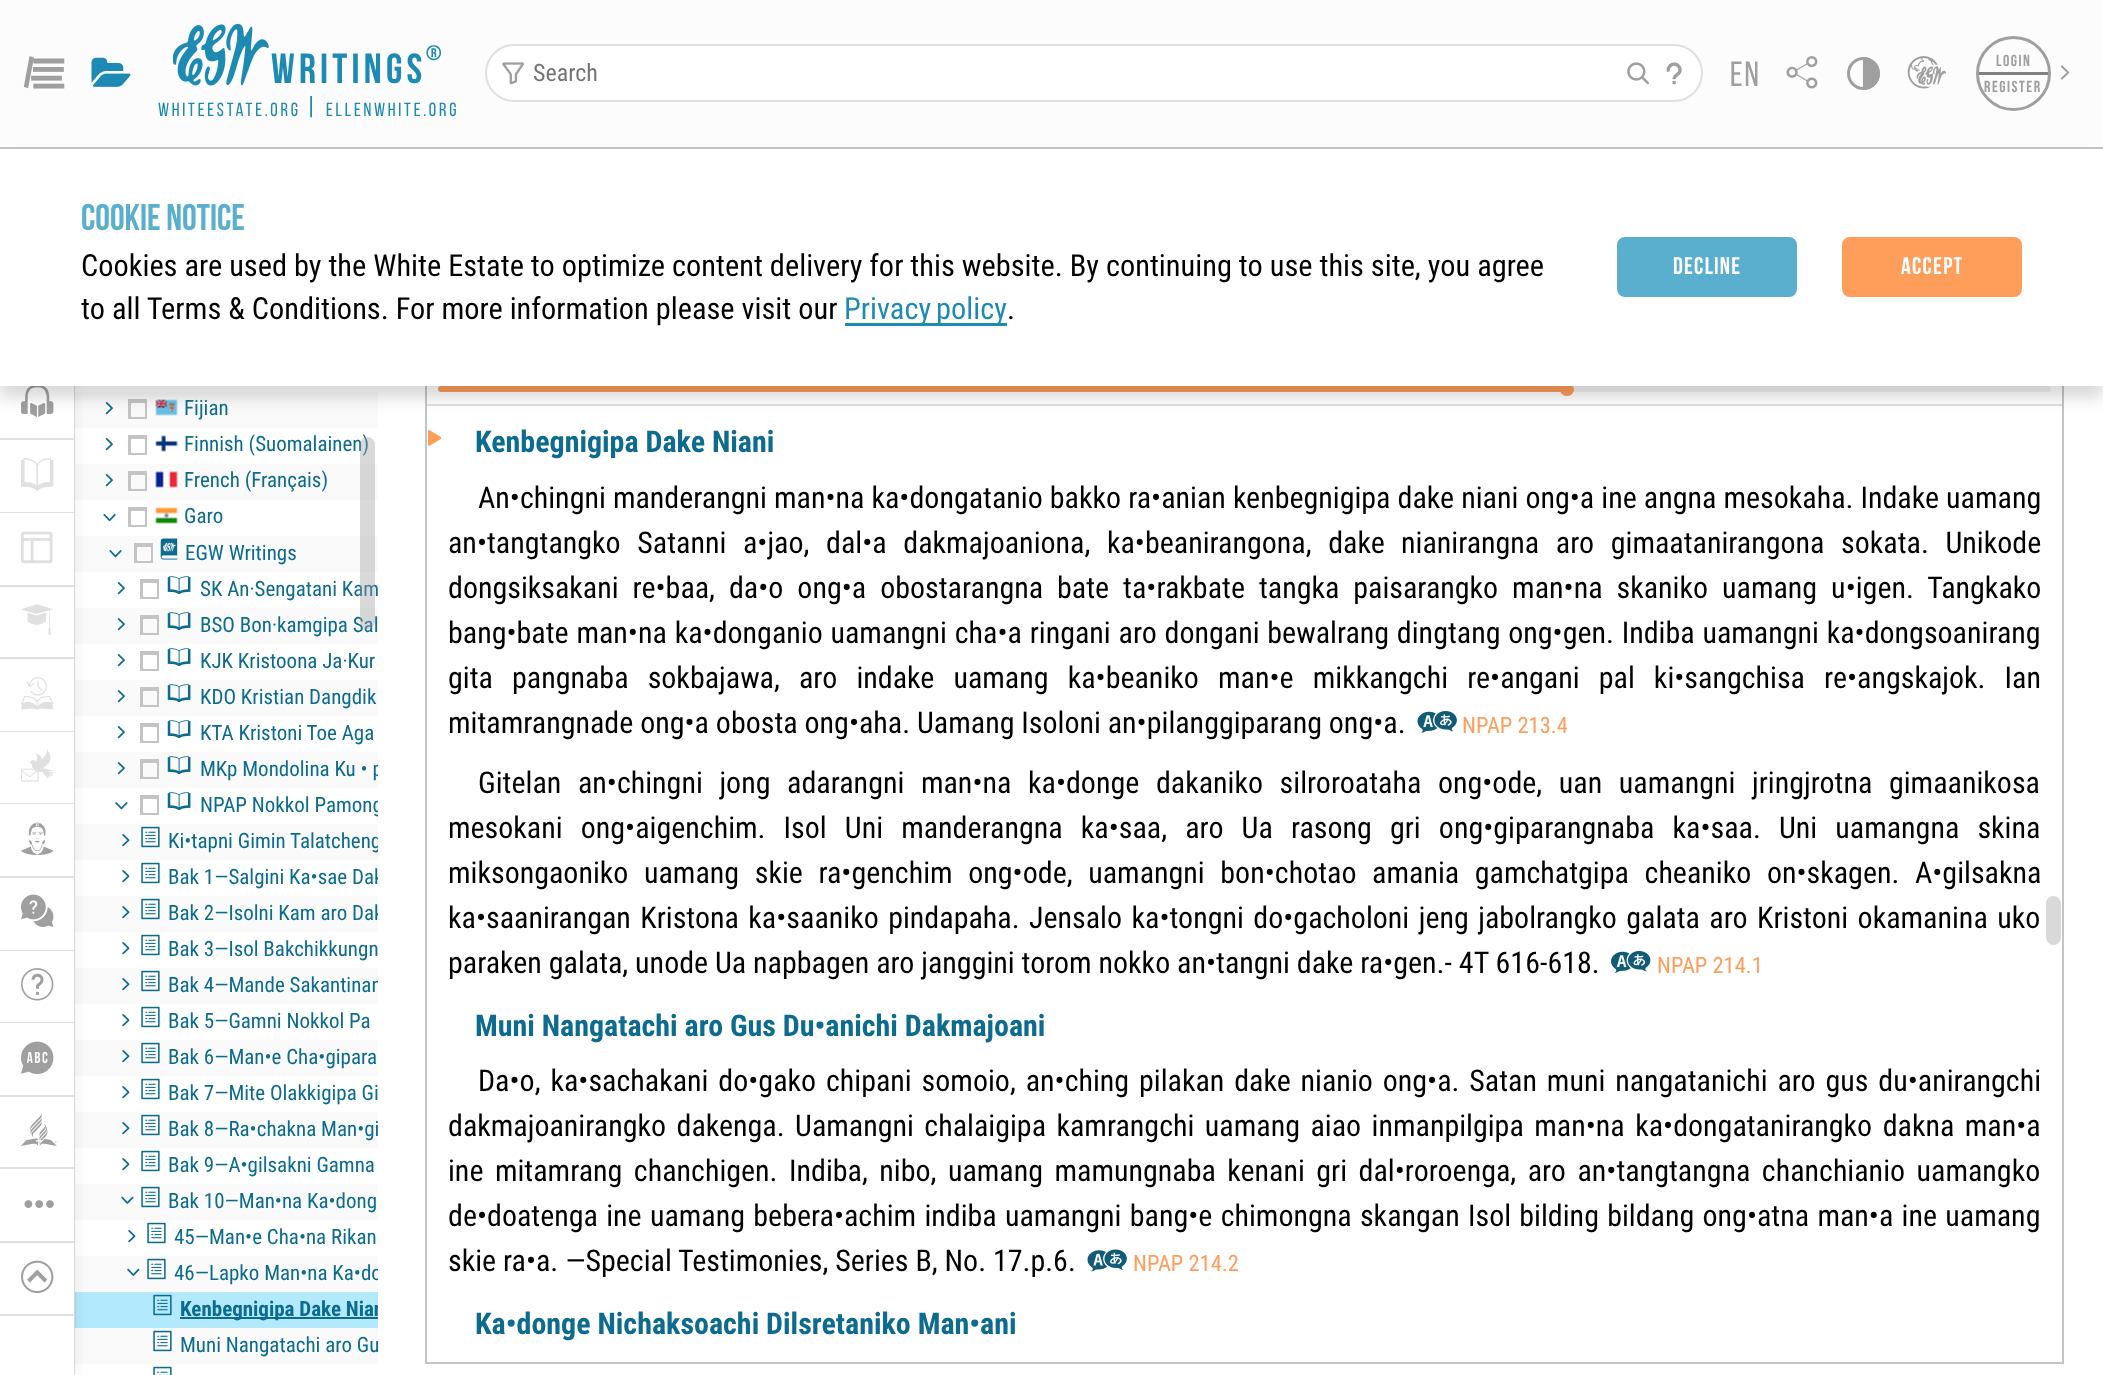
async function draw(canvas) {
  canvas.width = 2103;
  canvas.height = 1375;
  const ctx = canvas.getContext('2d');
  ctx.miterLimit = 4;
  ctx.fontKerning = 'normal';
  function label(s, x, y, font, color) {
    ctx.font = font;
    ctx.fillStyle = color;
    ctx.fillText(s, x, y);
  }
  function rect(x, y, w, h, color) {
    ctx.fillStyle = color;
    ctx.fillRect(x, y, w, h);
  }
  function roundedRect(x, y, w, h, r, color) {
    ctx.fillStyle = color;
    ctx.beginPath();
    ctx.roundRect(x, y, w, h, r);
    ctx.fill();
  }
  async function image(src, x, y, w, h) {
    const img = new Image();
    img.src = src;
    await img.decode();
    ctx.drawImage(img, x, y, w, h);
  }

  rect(0, 0, 2103, 1375, '#fff');
  rect(76, 1292, 302, 36, '#b3e9fd');
  rect(74, 386, 1, 989, '#e0e0e0');
  rect(75, 1292, 1, 36, '#a4daee');
  rect(75, 392, 303, 36, '#fafafa');
  rect(75, 464, 303, 36, '#fafafa');
  rect(75, 536, 303, 36, '#fafafa');
  rect(75, 608, 303, 36, '#fafafa');
  rect(75, 680, 303, 36, '#fafafa');
  rect(75, 752, 303, 36, '#fafafa');
  rect(75, 824, 303, 36, '#fafafa');
  rect(75, 896, 303, 36, '#fafafa');
  rect(75, 968, 303, 36, '#fafafa');
  rect(75, 1040, 303, 36, '#fafafa');
  rect(75, 1112, 303, 36, '#fafafa');
  rect(75, 1184, 303, 36, '#fafafa');
  rect(75, 1256, 303, 36, '#fafafa');
  rect(75, 1328, 303, 36, '#fafafa');
  ctx.fillStyle = '#00000014';
  ctx.filter = 'blur(7.5px)';
  ctx.beginPath();
  ctx.rect(0, 152, 74, 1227);
  ctx.fill();
  ctx.filter = 'none';
  rect(0, 0, 2103, 147, '#fcfcfc');
  rect(0, 147, 2103, 2, '#c4c4c4');
  await image('assets/img1.png', 23, 56, 42, 33);
  await image('assets/img2.png', 91, 57, 40, 30);
  await image('assets/img3.png', 173, 24, 96, 62);
  ctx.letterSpacing = '4.25px';
  label('writings', 271, 83, 'bold 42px Bebas Neue', '#1c8ab3');
  ctx.letterSpacing = '2px';
  label('®', 426, 60, 'bold 21px Bebas Neue', '#1c8ab3');
  ctx.letterSpacing = '2.75px';
  label('whiteestate.org', 158, 116, '19px Bebas Neue', '#1c8ab3');
  label('|', 306, 116, '27px Bebas Neue', '#1c8ab3');
  label('ellenwhite.org', 326, 116, '19px Bebas Neue', '#1c8ab3');
  ctx.fillStyle = '#fff';
  ctx.beginPath();
  ctx.roundRect(486, 45, 1216, 56, 28);
  ctx.fill();
  ctx.strokeStyle = '#e0e0e0';
  ctx.lineWidth = 2;
  ctx.stroke();
  await image('assets/img4.png', 502, 62, 22, 23);
  ctx.letterSpacing = '0px';
  label('Search', 533, 81, '24px Roboto Condensed', '#757575');
  await image('assets/img5.png', 1627, 62, 22, 23);
  await image('assets/img6.png', 1666, 62, 16, 23);
  ctx.letterSpacing = '2px';
  label('en', 1730, 86, '35px Bebas Neue', '#9f9f9f');
  await image('assets/img7.png', 1786, 56, 32, 33);
  ctx.beginPath();
  ctx.arc(1863.5, 73.5, 15, 0, 2 * Math.PI);
  ctx.strokeStyle = '#9f9f9f';
  ctx.lineWidth = 3;
  ctx.stroke();
  ctx.save();
  ctx.beginPath();
  ctx.roundRect(1847, 57, 33, 33, 16.5);
  ctx.clip();
  ctx.beginPath();
  ctx.roundRect(1863, 57, 17, 33, [0, 16.5, 16.5, 0]);
  ctx.fill();
  ctx.restore();
  await image('assets/img8.png', 1907, 56, 40, 33);
  rect(1979, 72, 69, 3, '#808080');
  ctx.beginPath();
  ctx.arc(2013.5, 73.5, 36, 0, 2 * Math.PI);
  ctx.stroke();
  ctx.letterSpacing = '1.5px';
  label('logIn', 1996, 66, 'bold 16px Bebas Neue', '#9f9f9f');
  label('Register', 1984, 92, 'bold 16px Bebas Neue', '#9f9f9f');
  await image('assets/img9.png', 2060, 65, 10, 15);
  rect(0, 386, 74, 989, '#fff');
  await image('assets/img10.png', 21, 386, 33, 31);
  await image('assets/img23.png', 105, 402, 8, 13);
  ctx.strokeStyle = '#c4c4c4';
  ctx.lineWidth = 2;
  ctx.strokeRect(130, 402, 16, 16);
  ctx.strokeRect(129, 400, 17, 18);
  ctx.beginPath();
  ctx.roundRect(130, 402, 16, 16, 2);
  ctx.stroke();
  await image('assets/img24.png', 155, 399, 23, 17);
  rect(425, 404, 1639, 2, '#e0e0e0');
  roundedRect(438, 386, 1613, 6, 3, '#f1f1f1');
  roundedRect(438, 386, 1128, 6, 3, '#ff9d5b');
  roundedRect(1560, 383, 14, 13, 6.5, '#ff9d5b');
  await image('assets/img43.png', 428, 430, 13, 16);
  await image('assets/img44.png', 1417, 711, 40, 22);
  await image('assets/img45.png', 1611, 951, 40, 22);
  await image('assets/img46.png', 1087, 1249, 40, 23);
  roundedRect(2046, 896, 15, 49, 7.5, '#d9d9d9');
  ctx.strokeRect(426, 270, 1637, 1093);
  ctx.fillStyle = '#00000026';
  ctx.filter = 'blur(7.5px)';
  ctx.beginPath();
  ctx.rect(0, 161, 2103, 237);
  ctx.fill();
  ctx.filter = 'none';
  rect(0, 149, 2103, 237, '#fff');
  ctx.letterSpacing = '0px';
  label('Cookie Notice', 81, 230, 'bold 37px Bebas Neue', '#5aaece');
  label('Cookies are used by the White Estate to optimize content delivery for this website. By continuing to use this site, you agree', 81, 276, '30.4px Roboto Condensed', '#000');
  label('to all Terms & Conditions. For more information please visit our', 81, 319, '30.4px Roboto Condensed', '#000');
  rect(845, 323, 162, 3, '#1c8ab3');
  ctx.wordSpacing = '-2px';
  label('Privacy policy', 844, 319, '30.4px Roboto Condensed', '#1c8ab3');
  ctx.wordSpacing = '0px';
  label('.', 1007, 319, '30.4px Roboto Condensed', '#000');
  ctx.fillStyle = '#5aaece';
  ctx.beginPath();
  ctx.roundRect(1618, 238, 178, 58, 7);
  ctx.fill();
  ctx.strokeStyle = '#5aaece';
  ctx.stroke();
  ctx.letterSpacing = '1.25px';
  label('Decline', 1673, 274, 'bold 24px Bebas Neue', '#fff');
  ctx.fillStyle = '#ff9d5b';
  ctx.beginPath();
  ctx.roundRect(1843, 238, 178, 58, 7);
  ctx.fill();
  ctx.strokeStyle = '#ff9d5b';
  ctx.stroke();
  label('Accept', 1901, 274, 'bold 24px Bebas Neue', '#fff');
  rect(0, 438, 74, 2, '#e0e0e0');
  rect(0, 512, 74, 1, '#e0e0e0');
  await image('assets/img11.png', 21, 458, 33, 33);
  rect(0, 585, 74, 2, '#e0e0e0');
  await image('assets/img12.png', 21, 531, 32, 33);
  rect(0, 657, 74, 2, '#e0e0e0');
  await image('assets/img13.png', 21, 604, 32, 31);
  rect(0, 731, 74, 1, '#e0e0e0');
  await image('assets/img14.png', 21, 677, 33, 33);
  rect(0, 803, 74, 1, '#e0e0e0');
  await image('assets/img15.png', 21, 749, 33, 33);
  rect(0, 876, 74, 2, '#e0e0e0');
  await image('assets/img16.png', 21, 822, 33, 33);
  rect(0, 950, 74, 1, '#e0e0e0');
  await image('assets/img17.png', 21, 894, 33, 33);
  rect(0, 1022, 74, 1, '#e0e0e0');
  await image('assets/img18.png', 21, 968, 33, 33);
  rect(0, 1095, 74, 2, '#e0e0e0');
  await image('assets/img19.png', 21, 1041, 33, 33);
  rect(0, 1167, 74, 2, '#e0e0e0');
  await image('assets/img20.png', 21, 1113, 36, 33);
  rect(0, 1241, 74, 2, '#e0e0e0');
  await image('assets/img21.png', 24, 1200, 30, 8);
  rect(0, 1314, 74, 2, '#e0e0e0');
  await image('assets/img22.png', 21, 1260, 33, 34);
  ctx.letterSpacing = '0px';
  label('Fijian', 184, 415, '21px Roboto Condensed', '#0c6b8f');
  await image('assets/img25.png', 105, 438, 8, 13);
  ctx.strokeStyle = '#c4c4c4';
  ctx.strokeRect(130, 438, 16, 16);
  ctx.strokeRect(129, 436, 17, 18);
  ctx.beginPath();
  ctx.roundRect(130, 438, 16, 16, 2);
  ctx.stroke();
  await image('assets/img26.png', 155, 435, 23, 17);
  label('Finnish (Suomalainen)', 184, 451, '21px Roboto Condensed', '#0c6b8f');
  await image('assets/img23.png', 105, 474, 8, 13);
  ctx.strokeRect(130, 474, 16, 16);
  ctx.strokeRect(129, 472, 17, 18);
  ctx.beginPath();
  ctx.roundRect(130, 474, 16, 16, 2);
  ctx.stroke();
  await image('assets/img27.png', 155, 471, 23, 17);
  label('French (Français)', 184, 487, '21px Roboto Condensed', '#0c6b8f');
  await image('assets/img28.png', 103, 514, 13, 8);
  ctx.strokeRect(130, 510, 16, 16);
  ctx.strokeRect(129, 508, 17, 18);
  ctx.beginPath();
  ctx.roundRect(130, 510, 16, 16, 2);
  ctx.stroke();
  await image('assets/img29.png', 155, 507, 23, 17);
  label('Garo', 184, 523, '21px Roboto Condensed', '#0c6b8f');
  await image('assets/img30.png', 109, 550, 13, 8);
  ctx.strokeRect(136, 546, 16, 16);
  ctx.strokeRect(135, 544, 17, 18);
  ctx.beginPath();
  ctx.roundRect(136, 546, 16, 16, 2);
  ctx.stroke();
  await image('assets/img31.png', 160, 538, 18, 22);
  label('EGW Writings', 185, 560, '21px Roboto Condensed', '#0c6b8f');
  await image('assets/img25.png', 117, 582, 8, 13);
  ctx.strokeRect(142, 582, 16, 16);
  ctx.strokeRect(141, 580, 17, 18);
  ctx.beginPath();
  ctx.roundRect(142, 582, 16, 16, 2);
  ctx.stroke();
  await image('assets/img32.png', 167, 576, 24, 18);
  label('SK An·Sengatani Kam', 200, 596, '21px Roboto Condensed', '#0c6b8f');
  await image('assets/img23.png', 117, 618, 8, 13);
  ctx.strokeRect(142, 618, 16, 16);
  ctx.strokeRect(141, 616, 17, 18);
  ctx.beginPath();
  ctx.roundRect(142, 618, 16, 16, 2);
  ctx.stroke();
  await image('assets/img33.png', 167, 612, 24, 18);
  label('BSO Bon·kamgipa Sal', 200, 632, '21px Roboto Condensed', '#0c6b8f');
  await image('assets/img25.png', 117, 654, 8, 13);
  ctx.strokeRect(142, 654, 16, 16);
  ctx.strokeRect(141, 652, 17, 18);
  ctx.beginPath();
  ctx.roundRect(142, 654, 16, 16, 2);
  ctx.stroke();
  await image('assets/img32.png', 167, 648, 24, 18);
  label('KJK Kristoona Ja·Kur', 200, 668, '21px Roboto Condensed', '#0c6b8f');
  await image('assets/img23.png', 117, 690, 8, 13);
  ctx.strokeRect(142, 690, 16, 16);
  ctx.strokeRect(141, 688, 17, 18);
  ctx.beginPath();
  ctx.roundRect(142, 690, 16, 16, 2);
  ctx.stroke();
  await image('assets/img33.png', 167, 684, 24, 18);
  label('KDO Kristian Dangdik', 200, 704, '21px Roboto Condensed', '#0c6b8f');
  await image('assets/img25.png', 117, 726, 8, 13);
  ctx.strokeRect(142, 726, 16, 16);
  ctx.strokeRect(141, 724, 17, 18);
  ctx.beginPath();
  ctx.roundRect(142, 726, 16, 16, 2);
  ctx.stroke();
  await image('assets/img32.png', 167, 720, 24, 18);
  label('KTA Kristoni Toe Aga', 200, 740, '21px Roboto Condensed', '#0c6b8f');
  await image('assets/img23.png', 117, 762, 8, 13);
  ctx.strokeRect(142, 762, 16, 16);
  ctx.strokeRect(141, 760, 17, 18);
  ctx.beginPath();
  ctx.roundRect(142, 762, 16, 16, 2);
  ctx.stroke();
  await image('assets/img33.png', 167, 756, 24, 18);
  ctx.save();
  ctx.beginPath();
  ctx.rect(75, 752, 303, 36);
  ctx.clip();
  label('MKp Mondolina Ku • p', 200, 776, '21px Roboto Condensed', '#0c6b8f');
  ctx.restore();
  await image('assets/img34.png', 115, 802, 13, 8);
  ctx.strokeRect(142, 798, 16, 16);
  ctx.strokeRect(141, 796, 17, 18);
  ctx.beginPath();
  ctx.roundRect(142, 798, 16, 16, 2);
  ctx.stroke();
  await image('assets/img32.png', 167, 792, 24, 18);
  ctx.save();
  ctx.beginPath();
  ctx.rect(75, 788, 303, 36);
  ctx.clip();
  label('NPAP Nokkol Pamong', 200, 812, '21px Roboto Condensed', '#0c6b8f');
  ctx.restore();
  await image('assets/img35.png', 122, 834, 8, 13);
  await image('assets/img36.png', 141, 826, 19, 22);
  ctx.save();
  ctx.beginPath();
  ctx.rect(75, 824, 303, 36);
  ctx.clip();
  label('Ki•tapni Gimin Talatcheng', 168, 848, '21px Roboto Condensed', '#0c6b8f');
  ctx.restore();
  await image('assets/img37.png', 122, 870, 8, 13);
  await image('assets/img38.png', 141, 862, 19, 22);
  ctx.save();
  ctx.beginPath();
  ctx.rect(75, 860, 303, 36);
  ctx.clip();
  label('Bak 1—Salgini Ka•sae Dak', 168, 884, '21px Roboto Condensed', '#0c6b8f');
  ctx.restore();
  await image('assets/img35.png', 122, 906, 8, 13);
  await image('assets/img36.png', 141, 898, 19, 22);
  ctx.save();
  ctx.beginPath();
  ctx.rect(75, 896, 303, 36);
  ctx.clip();
  label('Bak 2—Isolni Kam aro Dak', 168, 920, '21px Roboto Condensed', '#0c6b8f');
  ctx.restore();
  await image('assets/img37.png', 122, 942, 8, 13);
  await image('assets/img38.png', 141, 934, 19, 22);
  label('Bak 3—Isol Bakchikkungn', 168, 956, '21px Roboto Condensed', '#0c6b8f');
  await image('assets/img35.png', 122, 978, 8, 13);
  await image('assets/img36.png', 141, 970, 19, 22);
  ctx.save();
  ctx.beginPath();
  ctx.rect(75, 968, 303, 36);
  ctx.clip();
  label('Bak 4—Mande Sakantinan', 168, 992, '21px Roboto Condensed', '#0c6b8f');
  ctx.restore();
  await image('assets/img37.png', 122, 1014, 8, 13);
  await image('assets/img38.png', 141, 1006, 19, 22);
  label('Bak 5—Gamni Nokkol Pa', 168, 1028, '21px Roboto Condensed', '#0c6b8f');
  await image('assets/img35.png', 122, 1050, 8, 13);
  await image('assets/img36.png', 141, 1042, 19, 22);
  label('Bak 6—Man•e Cha•gipara', 168, 1064, '21px Roboto Condensed', '#0c6b8f');
  await image('assets/img37.png', 122, 1086, 8, 13);
  await image('assets/img38.png', 141, 1078, 19, 22);
  label('Bak 7—Mite Olakkigipa Gi', 168, 1100, '21px Roboto Condensed', '#0c6b8f');
  await image('assets/img35.png', 122, 1122, 8, 13);
  await image('assets/img36.png', 141, 1114, 19, 22);
  label('Bak 8—Ra•chakna Man•gi', 168, 1136, '21px Roboto Condensed', '#0c6b8f');
  await image('assets/img37.png', 122, 1158, 8, 13);
  await image('assets/img38.png', 141, 1150, 19, 22);
  label('Bak 9—A•gilsakni Gamna', 168, 1172, '21px Roboto Condensed', '#0c6b8f');
  await image('assets/img39.png', 121, 1196, 13, 8);
  await image('assets/img36.png', 141, 1186, 19, 22);
  label('Bak 10—Man•na Ka•dong', 168, 1208, '21px Roboto Condensed', '#0c6b8f');
  await image('assets/img37.png', 128, 1230, 8, 13);
  await image('assets/img38.png', 147, 1222, 19, 22);
  label('45—Man•e Cha•na Rikan', 174, 1244, '21px Roboto Condensed', '#0c6b8f');
  await image('assets/img40.png', 127, 1268, 13, 8);
  await image('assets/img36.png', 147, 1258, 19, 22);
  ctx.save();
  ctx.beginPath();
  ctx.rect(75, 1256, 303, 36);
  ctx.clip();
  label('46—Lapko Man•na Ka•do', 174, 1280, '21px Roboto Condensed', '#0c6b8f');
  ctx.restore();
  await image('assets/img41.png', 153, 1294, 19, 22);
  rect(180, 1317, 198, 2, '#0c6b8f');
  ctx.save();
  ctx.beginPath();
  ctx.rect(75, 1292, 303, 36);
  ctx.clip();
  label('Kenbegnigipa Dake Nian', 180, 1316, 'bold 21px Roboto Condensed', '#0c6b8f');
  ctx.restore();
  await image('assets/img36.png', 153, 1330, 19, 22);
  label('Muni Nangatachi aro Gu', 180, 1352, '21px Roboto Condensed', '#0c6b8f');
  await image('assets/img42.png', 153, 1366, 19, 9);
  roundedRect(360, 437, 15, 192, 7.5, '#9f9f9f66');
  label('Kenbegnigipa Dake Niani', 475, 452, 'bold 30px Roboto Condensed', '#0c6b8f');
  ctx.wordSpacing = '0.2px';
  label('An•chingni manderangni man•na ka•dongatanio bakko ra•anian kenbegnigipa dake niani ong•a ine angna mesokaha. Indake uamang', 478, 508, '30px Roboto Condensed', '#000');
  ctx.wordSpacing = '9.75px';
  label('an•tangtangko Satanni a•jao, dal•a dakmajoaniona, ka•beanirangona, dake', 448, 553, '30px Roboto Condensed', '#000');
  label('nianirangna aro gimaatanirangona sokata. Unikode', 1401, 553, '30px Roboto Condensed', '#000');
  ctx.wordSpacing = '7.1px';
  label('dongsiksakani re•baa, da•o ong•a obostarangna bate ta•rakbate tangka paisarangko man•na skaniko uamang u•igen. Tangkako', 448, 598, '30px Roboto Condensed', '#000');
  ctx.wordSpacing = '0.9px';
  label('bang•bate man•na ka•donganio uamangni cha•a ringani aro dongani bewalrang dingtang ong•gen. Indiba uamangni ka•dongsoanirang', 448, 643, '30px Roboto Condensed', '#000');
  ctx.wordSpacing = '12.25px';
  label('gita pangnaba sokbajawa, aro indake uamang ka•beaniko man•e mikkangchi re•angani pal ki•sangchisa re•angskajok. Ian', 448, 688, '30px Roboto Condensed', '#000');
  ctx.wordSpacing = '0px';
  label('mitamrangnade ong•a obosta ong•aha. Uamang Isoloni an•pilanggiparang ong•a.', 448, 733, '30px Roboto Condensed', '#000');
  label('NPAP 213.4', 1462, 733, '22.5px Roboto Condensed', '#ff9d5b');
  ctx.wordSpacing = '9.75px';
  label('Gitelan an•chingni jong adarangni man•na ka•donge dakaniko silroroataha ong•ode, uan uamangni jringjrotna gimaanikosa', 478, 793, '30px Roboto Condensed', '#000');
  ctx.wordSpacing = '11.25px';
  label('mesokani ong•aigenchim. Isol Uni manderangna ka•saa, aro Ua rasong gri ong•giparangnaba ka•saa. Uni uamangna skina', 448, 838, '30px Roboto Condensed', '#000');
  ctx.wordSpacing = '8.75px';
  label('miksongaoniko uamang skie ra•genchim ong•ode, uamangni bon•chotao amania gamchatgipa cheaniko on•skagen. A•gilsakna', 448, 883, '30px Roboto Condensed', '#000');
  ctx.wordSpacing = '2.6px';
  label('ka•saanirangan Kristona ka•saaniko pindapaha. Jensalo ka•tongni do•gacholoni jeng jabolrangko galata aro Kristoni okamanina uko', 448, 928, '30px Roboto Condensed', '#000');
  ctx.wordSpacing = '0px';
  label('paraken galata, unode Ua napbagen aro janggini torom nokko an•tangni dake ra•gen.- 4T 616-618.', 448, 973, '30px Roboto Condensed', '#000');
  label('NPAP 214.1', 1657, 973, '22.5px Roboto Condensed', '#ff9d5b');
  label('Muni Nangatachi aro Gus Du•anichi Dakmajoani', 475, 1036, 'bold 30px Roboto Condensed', '#0c6b8f');
  ctx.wordSpacing = '3px';
  label('Da•o, ka•sachakani do•gako chipani somoio, an•ching pilakan dake nianio ong•a. Satan muni nangatanichi aro gus du•anirangchi', 478, 1091, '30px Roboto Condensed', '#000');
  ctx.wordSpacing = '3.6px';
  label('dakmajoanirangko dakenga. Uamangni chalaigipa kamrangchi uamang aiao inmanpilgipa man•na ka•dongatanirangko dakna man•a', 448, 1136, '30px Roboto Condensed', '#000');
  ctx.wordSpacing = '4.6px';
  label('ine mitamrang chanchigen. Indiba, nibo, uamang mamungnaba kenani gri dal•roroenga, aro an•tangtangna chanchianio uamangko', 448, 1181, '30px Roboto Condensed', '#000');
  ctx.wordSpacing = '1.4px';
  label('de•doatenga ine uamang bebera•achim indiba uamangni bang•e chimongna skangan Isol bilding bildang ong•atna man•a ine uamang', 448, 1226, '30px Roboto Condensed', '#000');
  ctx.wordSpacing = '0px';
  label('skie ra•a. —Special Testimonies, Series B, No. 17.p.6.', 448, 1271, '30px Roboto Condensed', '#000');
  label('NPAP 214.2', 1133, 1271, '22.5px Roboto Condensed', '#ff9d5b');
  label('Ka•donge Nichaksoachi Dilsretaniko Man•ani', 475, 1334, 'bold 30px Roboto Condensed', '#0c6b8f');
}

draw(document.querySelector('canvas'));
